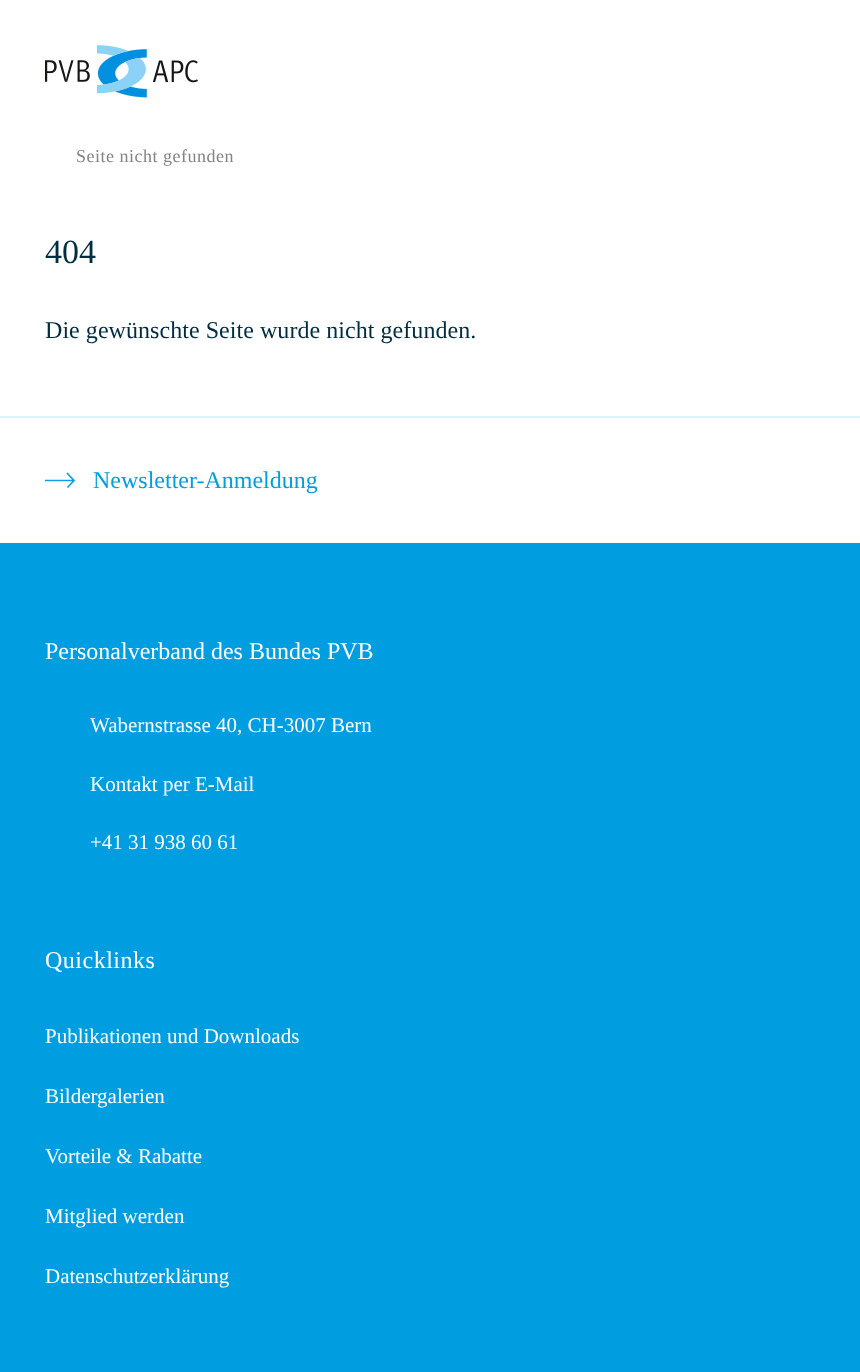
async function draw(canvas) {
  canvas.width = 860;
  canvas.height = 1372;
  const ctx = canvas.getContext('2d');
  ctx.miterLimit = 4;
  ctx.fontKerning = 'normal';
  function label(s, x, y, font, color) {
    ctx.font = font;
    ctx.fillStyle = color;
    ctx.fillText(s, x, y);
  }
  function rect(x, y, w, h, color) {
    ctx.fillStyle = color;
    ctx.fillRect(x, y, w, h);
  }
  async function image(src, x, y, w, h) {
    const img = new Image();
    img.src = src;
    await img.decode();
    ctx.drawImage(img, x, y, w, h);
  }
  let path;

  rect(0, 0, 860, 1372, '#fff');
  await image('assets/img1.png', 45, 45, 153, 53);
  ctx.letterSpacing = '0.5px';
  label('Seite nicht gefunden', 76, 162, '18px Liberation Serif', '#818484');
  ctx.letterSpacing = '0px';
  label('404', 45, 263, '34px Liberation Serif', '#002d40');
  ctx.letterSpacing = '0.05px';
  label('Die gewünschte Seite wurde nicht gefunden.', 45, 338, '24px Liberation Serif', '#002d40');
  rect(0, 543, 860, 829, '#009ee0');
  rect(0, 416, 860, 2, '#def2fb');
  path = new Path2D('M67 473L74 480.5L67.5 487.5M45 480.5H74.5');
  ctx.strokeStyle = '#109ee0';
  ctx.lineWidth = 1.7;
  ctx.stroke(path);
  ctx.letterSpacing = '0px';
  label('Newsletter-Anmeldung', 93, 488, '24px Liberation Serif', '#009ee0');
  label('Personalverband des Bundes PVB', 45, 659, '24px Liberation Serif', '#fff');
  label('Wabernstrasse 40, CH-3007 Bern', 90, 732, '21px Liberation Serif', '#fff');
  label('Kontakt per E-Mail', 90, 791, '21px Liberation Serif', '#fff');
  label('+41 31 938 60 61', 90, 849, '21px Liberation Serif', '#fff');
  ctx.letterSpacing = '0.5px';
  label('Quicklinks', 45, 968, '24px Liberation Serif', '#fff');
  ctx.letterSpacing = '0px';
  label('Publikationen und Downloads', 45, 1043, '21px Liberation Serif', '#fff');
  label('Bildergalerien', 45, 1103, '21px Liberation Serif', '#fff');
  label('Vorteile & Rabatte', 45, 1163, '21px Liberation Serif', '#fff');
  label('Mitglied werden', 45, 1223, '21px Liberation Serif', '#fff');
  label('Datenschutzerklärung', 45, 1283, '21px Liberation Serif', '#fff');
}

draw(document.querySelector('canvas'));
